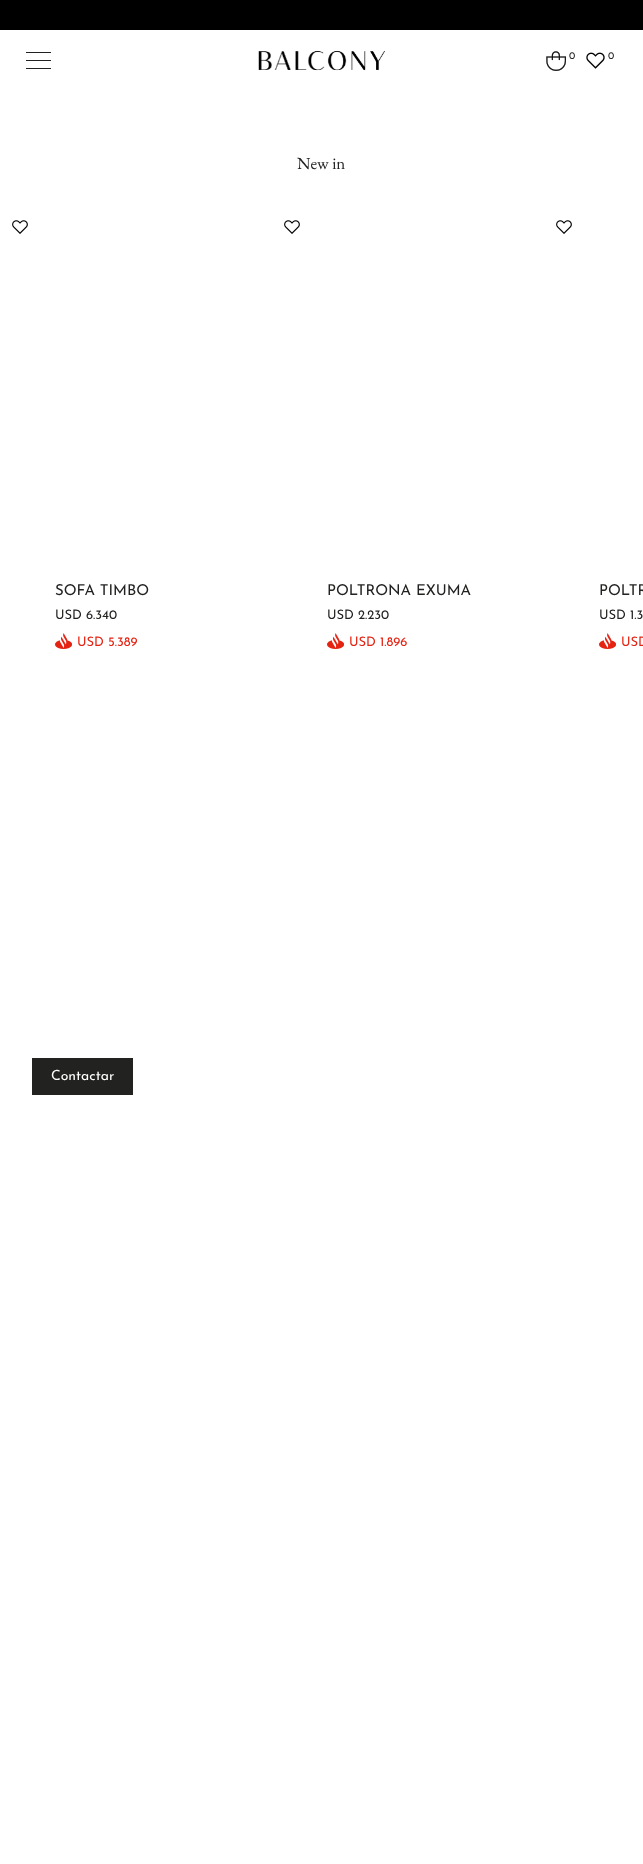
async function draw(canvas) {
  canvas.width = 643;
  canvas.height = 1864;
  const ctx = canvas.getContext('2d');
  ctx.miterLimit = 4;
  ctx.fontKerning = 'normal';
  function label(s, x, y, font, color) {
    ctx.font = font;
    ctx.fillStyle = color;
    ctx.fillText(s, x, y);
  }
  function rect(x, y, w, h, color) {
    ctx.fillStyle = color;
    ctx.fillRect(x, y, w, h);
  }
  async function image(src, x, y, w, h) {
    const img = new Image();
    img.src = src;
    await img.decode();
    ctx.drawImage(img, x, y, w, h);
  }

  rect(0, 0, 643, 1864, '#fff');
  rect(26, 52, 25, 1, '#222221');
  rect(26, 60, 25, 1, '#222221');
  rect(26, 68, 25, 1, '#222221');
  rect(0, 0, 643, 30, '#000');
  await image('assets/img1.png', 258, 50, 128, 21);
  await image('assets/img2.png', 546, 51, 20, 20);
  label('0', 569, 59, '10px Josefin Sans', '#222221');
  await image('assets/img3.png', 586, 52, 19, 17);
  label('0', 608, 59, '10px Josefin Sans', '#222221');
  label('New in', 297, 169, '17px EB Garamond', '#222221');
  await image('assets/img4.png', 12, 220, 16, 14);
  await image('assets/img4.png', 284, 220, 16, 14);
  label('SOFA TIMBO', 55, 595, '15px Josefin Sans', '#222221');
  label('USD 6.340', 55, 619, '13px Josefin Sans', '#222221');
  await image('assets/img5.png', 55, 633, 17, 16);
  label('USD 5.389', 77, 646, '13px Josefin Sans', '#e42313');
  await image('assets/img4.png', 556, 220, 16, 14);
  label('POLTRONA EXUMA', 327, 595, '15px Josefin Sans', '#222221');
  label('USD 2.230', 327, 619, '13px Josefin Sans', '#222221');
  await image('assets/img5.png', 327, 633, 17, 16);
  label('USD 1.896', 349, 646, '13px Josefin Sans', '#e42313');
  label('POLTR', 599, 595, '15px Josefin Sans', '#222221');
  label('USD 1.3', 599, 619, '13px Josefin Sans', '#222221');
  await image('assets/img5.png', 599, 633, 17, 16);
  label('USD', 621, 646, '13px Josefin Sans', '#e42313');
  rect(32, 1058, 101, 37, '#222221');
  label('Contactar', 51, 1080, '14px Josefin Sans', '#fff');
}

draw(document.querySelector('canvas'));
